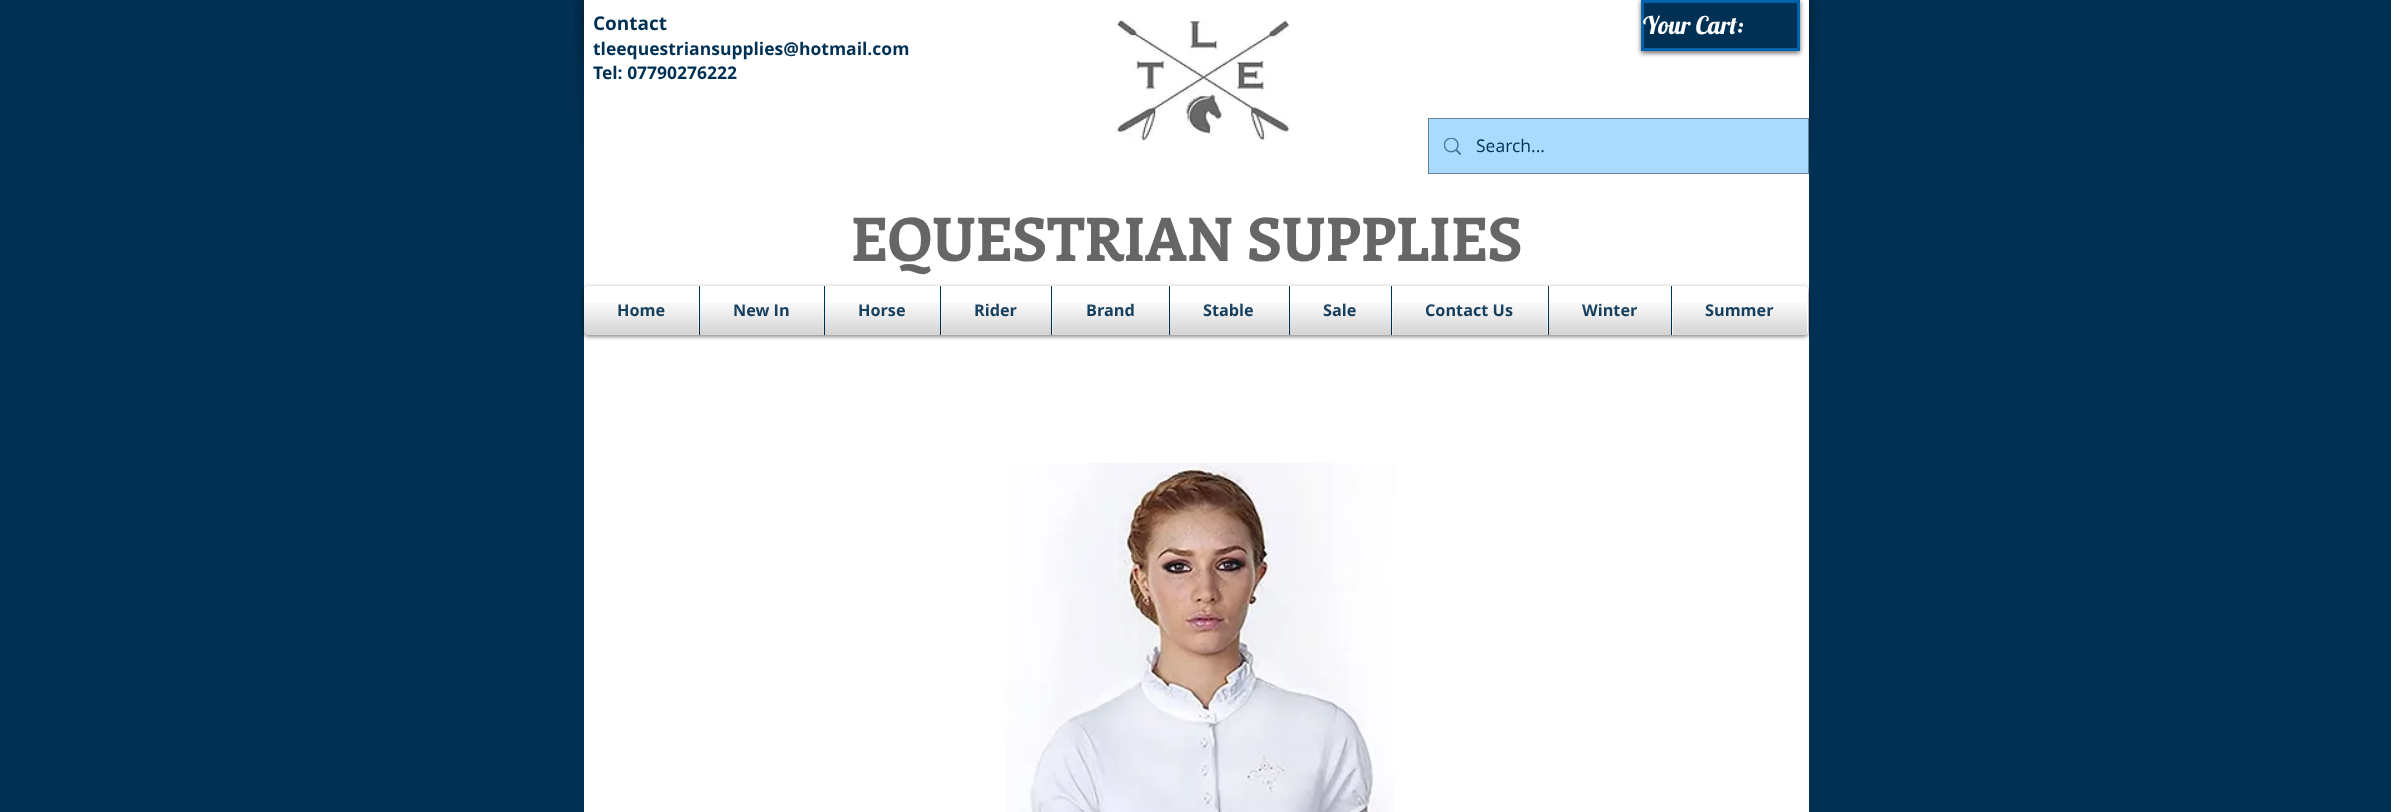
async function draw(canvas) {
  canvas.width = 2391;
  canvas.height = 812;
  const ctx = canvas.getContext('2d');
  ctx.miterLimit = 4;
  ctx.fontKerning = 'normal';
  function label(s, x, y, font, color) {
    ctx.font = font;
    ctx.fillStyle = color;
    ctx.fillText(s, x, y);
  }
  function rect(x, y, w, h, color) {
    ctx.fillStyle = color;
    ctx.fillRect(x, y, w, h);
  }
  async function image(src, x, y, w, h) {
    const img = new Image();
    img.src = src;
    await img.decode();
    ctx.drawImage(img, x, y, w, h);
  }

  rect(0, 0, 2391, 812, '#003154');
  await image('assets/img1.png', 574, 0, 10, 161);
  rect(584, 0, 1225, 812, '#fff');
  await image('assets/img2.png', 1809, 0, 10, 161);
  label('Contact', 593, 30, 'bold 19px Open Sans', '#003154');
  label('tleequestriansupplies@hotmail.com', 593, 55, 'bold 17.5px Open Sans', '#003154');
  label('Tel: 07790276222', 593, 79, 'bold 17.5px Open Sans', '#003154');
  await image('assets/img3.png', 1114, 20, 175, 121);
  ctx.fillStyle = '#00000099';
  ctx.filter = 'blur(2.5px)';
  ctx.beginPath();
  ctx.rect(1641, 1, 159, 52);
  ctx.fill();
  ctx.filter = 'none';
  ctx.fillStyle = '#003154';
  ctx.beginPath();
  ctx.rect(1642.5, 1.5, 156, 48);
  ctx.fill();
  ctx.strokeStyle = '#0063a9';
  ctx.lineWidth = 3;
  ctx.stroke();
  label('Your Cart:', 1643, 34, '24.5px Lobster', '#fff');
  ctx.strokeStyle = '#668398';
  ctx.lineWidth = 1;
  ctx.strokeRect(1428.5, 118.5, 380, 55);
  rect(1429, 119, 379, 54, '#aadbff');
  await image('assets/img4.png', 1444, 138, 17, 17);
  label('Search...', 1476, 152, '17.5px Open Sans', '#003154');
  label('EQUESTRIAN SUPPLIES', 851, 261, 'bold 60px Enriqueta', '#666');
  ctx.fillStyle = '#00000099';
  ctx.filter = 'blur(2.5px)';
  ctx.beginPath();
  ctx.roundRect(584, 288, 1224, 48, 4);
  ctx.fill();
  ctx.filter = 'none';
  await image('assets/img5.png', 584, 331, 1223, 4);
  ctx.fillStyle = '#fff';
  ctx.beginPath();
  ctx.roundRect(584, 286, 115, 49, [4, 0, 0, 4]);
  ctx.fill();
  label('Home', 617, 316, 'bold 16.25px Open Sans', '#003154');
  await image('assets/img6.png', 618, 304, 46, 12);
  await image('assets/img7.png', 584, 303, 115, 32);
  rect(700, 286, 124, 49, '#fff');
  rect(699, 286, 1, 49, '#003154');
  label('New In', 733, 316, 'bold 16.25px Open Sans', '#003154');
  await image('assets/img8.png', 734, 304, 55, 12);
  await image('assets/img9.png', 700, 303, 124, 32);
  rect(825, 286, 115, 49, '#fff');
  rect(824, 286, 1, 49, '#003154');
  label('Horse', 858, 316, 'bold 16.25px Open Sans', '#003154');
  await image('assets/img10.png', 859, 304, 46, 12);
  await image('assets/img11.png', 825, 303, 115, 32);
  rect(941, 286, 110, 49, '#fff');
  rect(940, 286, 1, 49, '#003154');
  label('Rider', 974, 316, 'bold 16.25px Open Sans', '#003154');
  await image('assets/img12.png', 975, 303, 42, 13);
  await image('assets/img13.png', 941, 303, 110, 32);
  rect(1052, 286, 117, 49, '#fff');
  rect(1051, 286, 1, 49, '#003154');
  label('Brand', 1086, 316, 'bold 16.25px Open Sans', '#003154');
  await image('assets/img14.png', 1087, 303, 46, 13);
  await image('assets/img15.png', 1052, 303, 117, 32);
  rect(1170, 286, 119, 49, '#fff');
  rect(1169, 286, 1, 49, '#003154');
  label('Stable', 1203, 316, 'bold 16.25px Open Sans', '#003154');
  await image('assets/img16.png', 1204, 303, 50, 13);
  await image('assets/img17.png', 1170, 303, 119, 32);
  rect(1290, 286, 101, 49, '#fff');
  rect(1289, 286, 1, 49, '#003154');
  label('Sale', 1323, 316, 'bold 16.25px Open Sans', '#003154');
  await image('assets/img18.png', 1324, 303, 32, 13);
  await image('assets/img19.png', 1290, 303, 101, 32);
  rect(1392, 286, 156, 49, '#fff');
  rect(1391, 286, 1, 49, '#003154');
  label('Contact Us', 1425, 316, 'bold 16.25px Open Sans', '#003154');
  await image('assets/img20.png', 1426, 304, 87, 12);
  await image('assets/img21.png', 1392, 303, 156, 32);
  rect(1549, 286, 122, 49, '#fff');
  rect(1548, 286, 1, 49, '#003154');
  label('Winter', 1582, 316, 'bold 16.25px Open Sans', '#003154');
  await image('assets/img22.png', 1548, 286, 89, 30);
  await image('assets/img23.png', 1549, 303, 122, 32);
  ctx.fillStyle = '#fff';
  ctx.beginPath();
  ctx.roundRect(1671, 286, 137, 49, [0, 4, 4, 0]);
  ctx.fill();
  rect(1671, 286, 1, 49, '#003154');
  label('Summer', 1705, 316, 'bold 16.25px Open Sans', '#003154');
  await image('assets/img24.png', 1706, 304, 68, 12);
  await image('assets/img25.png', 1672, 303, 135, 32);
  await image('assets/img26.png', 1006, 463, 388, 349);
}

draw(document.querySelector('canvas'));
